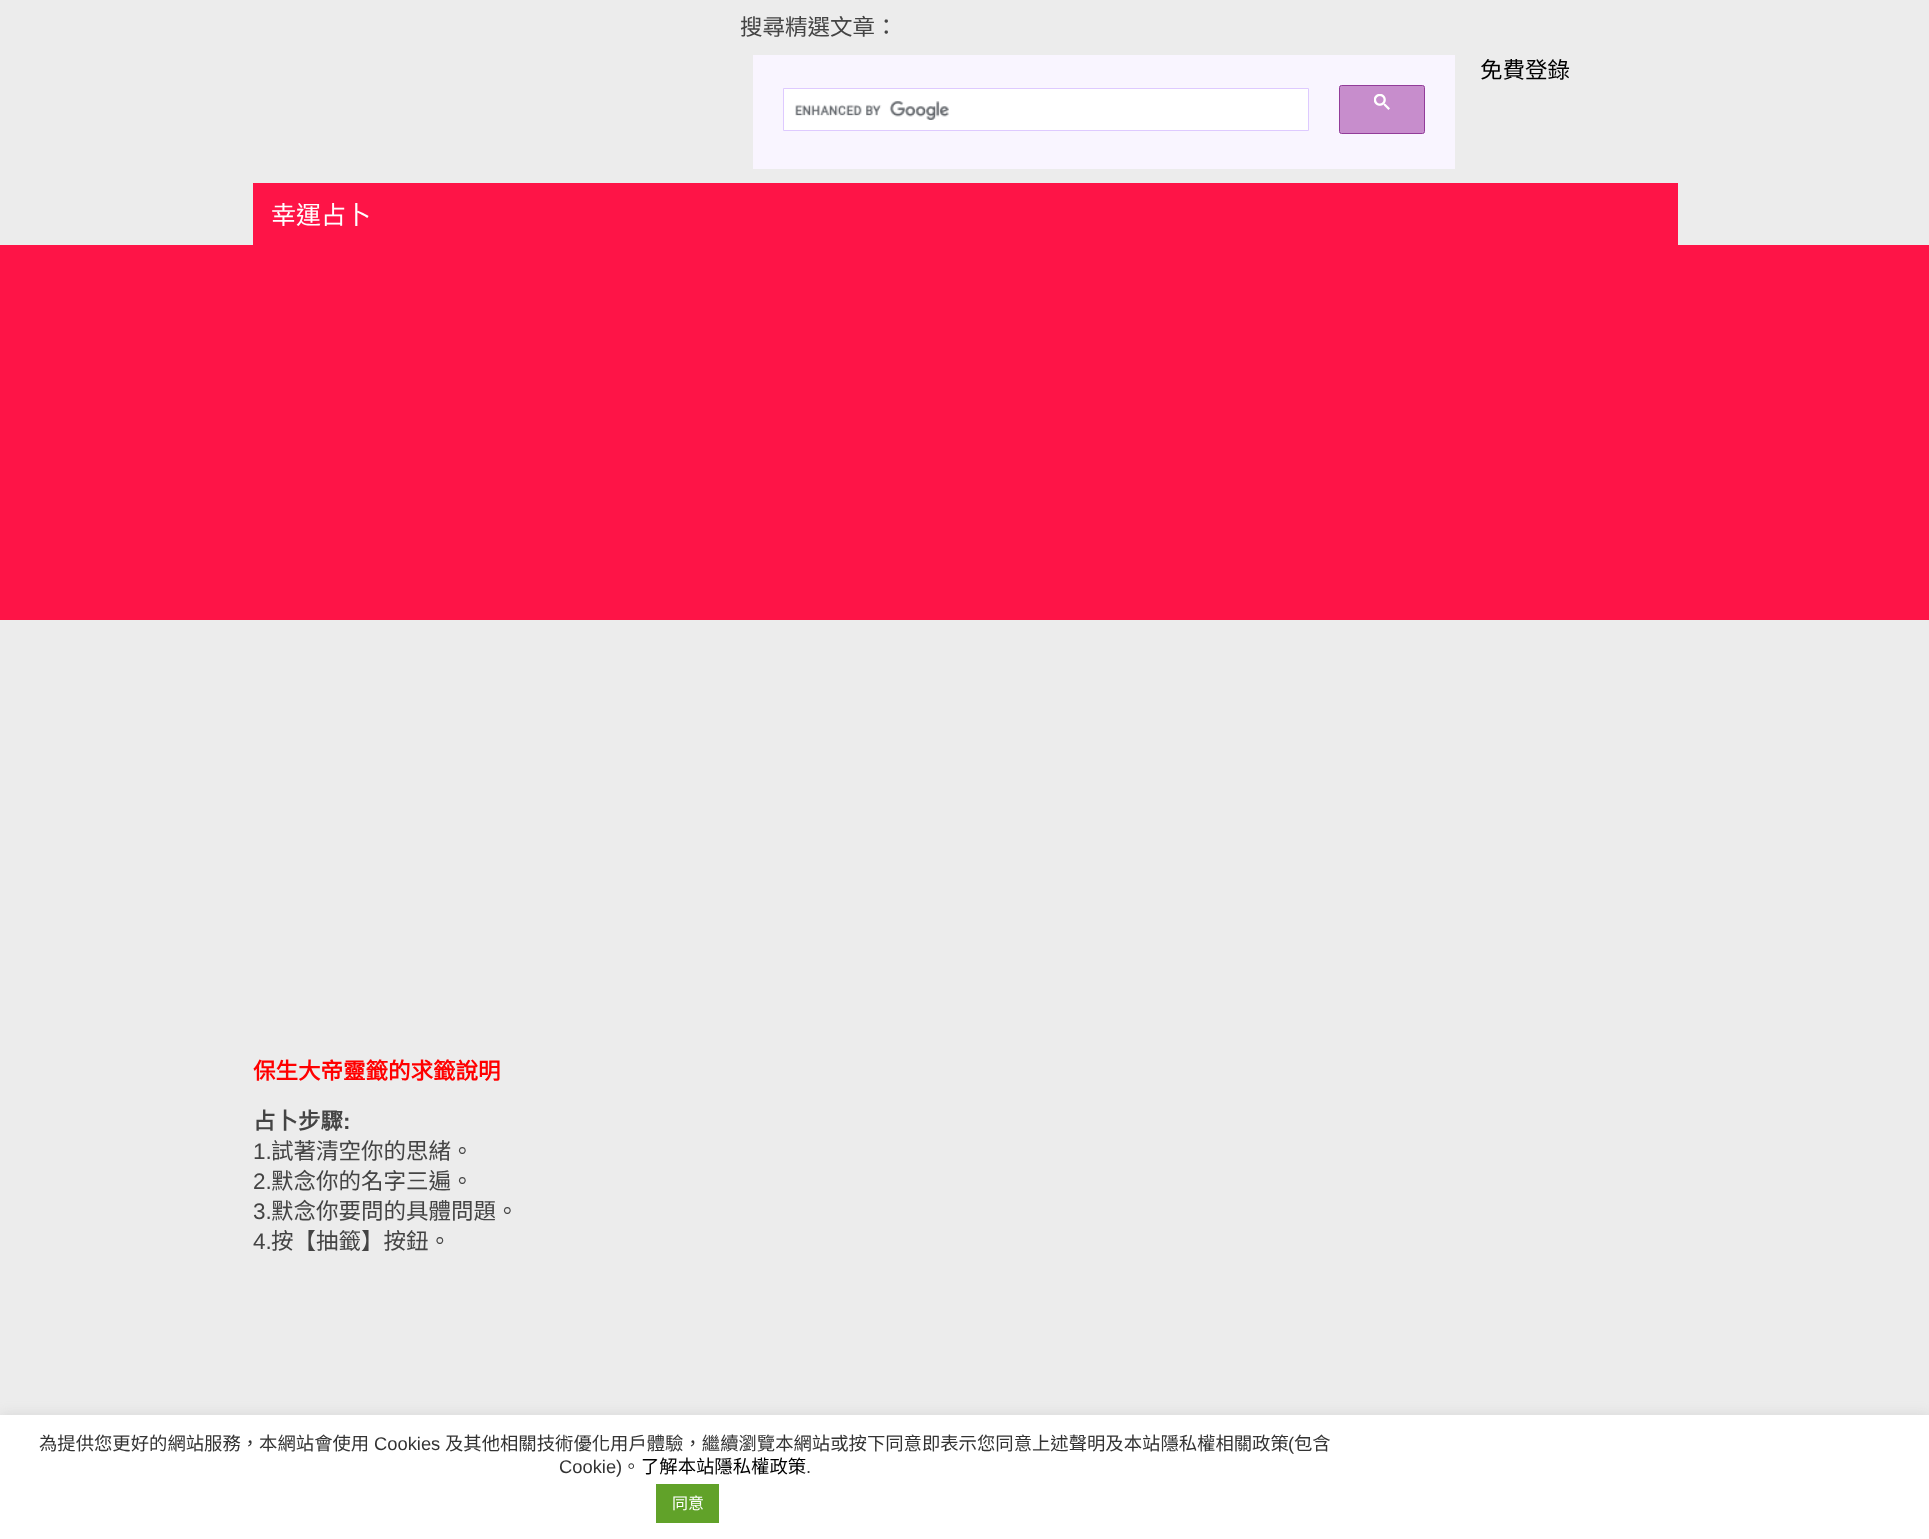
async function draw(canvas) {
  canvas.width = 1929;
  canvas.height = 1539;
  const ctx = canvas.getContext('2d');
  ctx.miterLimit = 4;
  ctx.fontKerning = 'normal';
  function label(s, x, y, font, color) {
    ctx.font = font;
    ctx.fillStyle = color;
    ctx.fillText(s, x, y);
  }
  function rect(x, y, w, h, color) {
    ctx.fillStyle = color;
    ctx.fillRect(x, y, w, h);
  }
  async function image(src, x, y, w, h) {
    const img = new Image();
    img.src = src;
    await img.decode();
    ctx.drawImage(img, x, y, w, h);
  }

  rect(0, 0, 1929, 1539, '#ececec');
  label('搜尋精選文章：', 740, 35, '22.5px Noto Sans CJK TC', '#444');
  rect(753, 55, 702, 114, '#f9f5ff');
  ctx.fillStyle = '#fff';
  ctx.beginPath();
  ctx.rect(783.5, 88.5, 525, 42);
  ctx.fill();
  ctx.strokeStyle = '#decaff';
  ctx.stroke();
  await image('assets/img1.png', 795, 101, 154, 19);
  ctx.fillStyle = '#c78dcc';
  ctx.beginPath();
  ctx.roundRect(1339.5, 85.5, 85, 48, 2);
  ctx.fill();
  ctx.strokeStyle = '#923c99';
  ctx.stroke();
  await image('assets/img2.png', 1374, 94, 16, 16);
  label('免費登錄', 1480, 78, '22.5px Noto Sans CJK TC', '#000');
  rect(253, 183, 1425, 62, '#fe1447');
  label('幸運占卜', 271, 224, '25px Noto Sans CJK TC', '#fff');
  rect(0, 245, 1929, 375, '#fe1447');
  label('保生大帝靈籤的求籤說明', 253, 1079, 'bold 22.5px Noto Sans CJK TC', '#f00');
  label('占卜步驟', 253, 1129, 'bold 22.5px Noto Sans CJK TC', '#444');
  label(':', 343, 1129, 'bold 22.5px Liberation Sans', '#444');
  label('1.', 253, 1159, '22.5px Liberation Sans', '#444');
  label('試著清空你的思緒。', 271, 1159, '22.5px Noto Sans CJK TC', '#444');
  label('2.', 253, 1189, '22.5px Liberation Sans', '#444');
  label('默念你的名字三遍。', 271, 1189, '22.5px Noto Sans CJK TC', '#444');
  label('3.', 253, 1219, '22.5px Liberation Sans', '#444');
  label('默念你要問的具體問題。', 271, 1219, '22.5px Noto Sans CJK TC', '#444');
  label('4.', 253, 1249, '22.5px Liberation Sans', '#444');
  label('按【抽籤】按鈕。', 271, 1249, '22.5px Noto Sans CJK TC', '#444');
  ctx.fillStyle = '#acabab4d';
  ctx.filter = 'blur(6px)';
  ctx.beginPath();
  ctx.rect(0, 1414, 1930, 125);
  ctx.fill();
  ctx.filter = 'none';
  rect(0, 1415, 1929, 124, '#fff');
  label('為提供您更好的網站服務，本網站會使用', 39, 1450, '18.35px Noto Sans CJK TC', '#333');
  label('Cookies', 374, 1450, '18.35px Liberation Sans', '#333');
  label('及其他相關技術優化用戶體驗，繼續瀏覽本網站或按下同意即表示您同意上述聲明及本站隱私權相關政策', 445, 1450, '18.35px Noto Sans CJK TC', '#333');
  label('(', 1288, 1450, '18.35px Liberation Sans', '#333');
  label('包含', 1294, 1450, '18.35px Noto Sans CJK TC', '#333');
  label('Cookie)', 559, 1473, '18.35px Liberation Sans', '#333');
  label('。', 622, 1473, '18.35px Noto Sans CJK TC', '#333');
  label('了解本站隱私權政策', 641, 1473, '18.35px Noto Sans CJK TC', '#000');
  label('.', 806, 1473, '18.35px Liberation Sans', '#333');
  rect(656, 1484, 63, 39, '#61a229');
  label('同意', 672, 1509, '16px Noto Sans CJK TC', '#fff');
}

draw(document.querySelector('canvas'));
